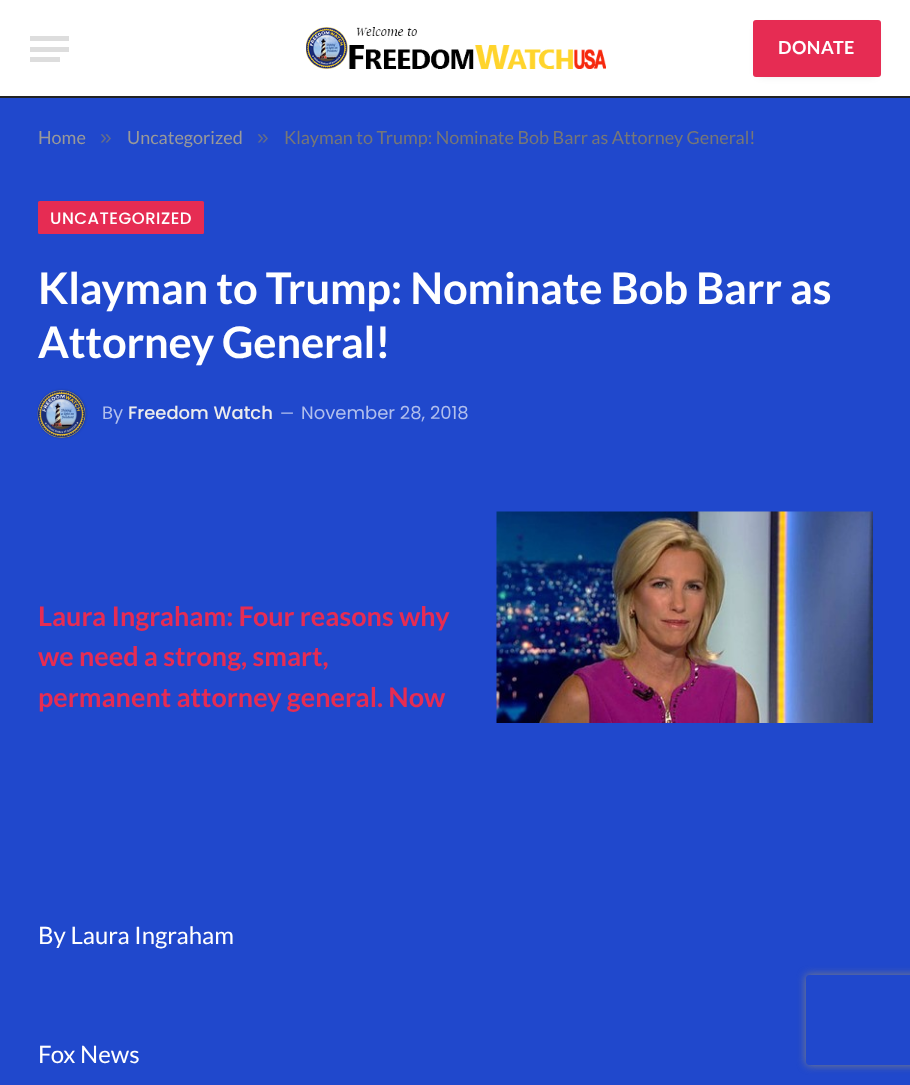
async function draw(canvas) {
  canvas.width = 910;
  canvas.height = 1085;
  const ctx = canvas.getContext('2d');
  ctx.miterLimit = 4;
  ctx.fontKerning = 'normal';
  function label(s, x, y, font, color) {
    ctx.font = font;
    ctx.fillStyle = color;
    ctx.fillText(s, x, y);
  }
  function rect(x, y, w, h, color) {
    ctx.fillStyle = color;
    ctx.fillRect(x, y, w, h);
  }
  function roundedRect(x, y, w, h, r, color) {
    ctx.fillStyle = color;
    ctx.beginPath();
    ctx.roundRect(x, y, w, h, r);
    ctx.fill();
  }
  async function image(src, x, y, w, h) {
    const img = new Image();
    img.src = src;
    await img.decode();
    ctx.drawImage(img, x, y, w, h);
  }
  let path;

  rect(0, 0, 910, 1085, '#2048cc');
  rect(0, 0, 910, 96, '#fff');
  rect(0, 96, 910, 2, '#222');
  rect(30, 57, 30, 5, '#ddd');
  rect(30, 36, 39, 5, '#ddd');
  rect(30, 47, 39, 5, '#ddd');
  await image('assets/img1.png', 306, 27, 300, 42);
  ctx.fillStyle = '#00000029';
  ctx.filter = 'blur(5px)';
  ctx.beginPath();
  ctx.rect(759, 29, 116, 45);
  ctx.fill();
  ctx.filter = 'none';
  roundedRect(753, 20, 128, 57, 3, '#e62c53');
  ctx.letterSpacing = '0.5px';
  label('DONATE', 778, 54, 'bold 18px Lato', '#fff');
  ctx.letterSpacing = '0px';
  label('Home', 38, 144, '18px Lato', '#999');
  label('»', 100, 144, '21px Liberation Sans', '#666e88');
  label('Uncategorized', 127, 144, '18px Lato', '#999');
  label('»', 257, 144, '21px Liberation Sans', '#666e88');
  label('Klayman to Trump: Nominate Bob Barr as Attorney General!', 284, 144, '18px Lato', '#777');
  roundedRect(38, 201, 166, 33, 1.5, '#e62c53');
  ctx.letterSpacing = '0.5px';
  label('UNCATEGORIZED', 50, 224, '500 16.5px Poppins', '#fff');
  ctx.letterSpacing = '-0.2px';
  label('Klayman to Trump: Nominate Bob Barr as', 38, 304, 'bold 43.5px Lato', '#fff');
  label('Attorney General!', 38, 358, 'bold 43.5px Lato', '#fff');
  ctx.fillStyle = '#00000033';
  ctx.filter = 'blur(1px)';
  ctx.beginPath();
  ctx.roundRect(38, 390, 48, 48, 24);
  ctx.fill();
  ctx.filter = 'none';
  await image('assets/img2.png', 37, 390, 49, 48);
  ctx.letterSpacing = '0px';
  label('By', 102, 419, '18px Poppins', '#b1bfed');
  label('Freedom Watch', 128, 419, '500 18px Poppins', '#ececec');
  label('—', 280, 419, '16px Poppins', '#b1bfed');
  label('November 28, 2018', 301, 419, '18px Poppins', '#b1bfed');
  label('Laura Ingraham: Four reasons why', 38, 626, 'bold 27px Lato', '#e62c53');
  label('we need a strong, smart,', 38, 666, 'bold 27px Lato', '#e62c53');
  label('permanent attorney general. Now', 38, 707, 'bold 27px Lato', '#e62c53');
  await image('assets/img3.png', 496, 511, 377, 212);
  label('By Laura Ingraham', 38, 944, '24px Lato', '#fff');
  label('Fox News', 38, 1063, '24px Lato', '#fff');
  ctx.save();
  path = new Path2D('M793 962H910V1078H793ZM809 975H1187C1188.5 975 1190 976.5 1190 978V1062C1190 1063.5 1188.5 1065 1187 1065H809C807.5 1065 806 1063.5 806 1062V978C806 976.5 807.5 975 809 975Z');
  ctx.clip(path, 'evenodd');
  ctx.fillStyle = '#808080';
  ctx.filter = 'blur(4px)';
  ctx.beginPath();
  ctx.roundRect(806, 975, 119, 90, 3);
  ctx.fill();
  ctx.filter = 'none';
  ctx.restore();
}

draw(document.querySelector('canvas'));
